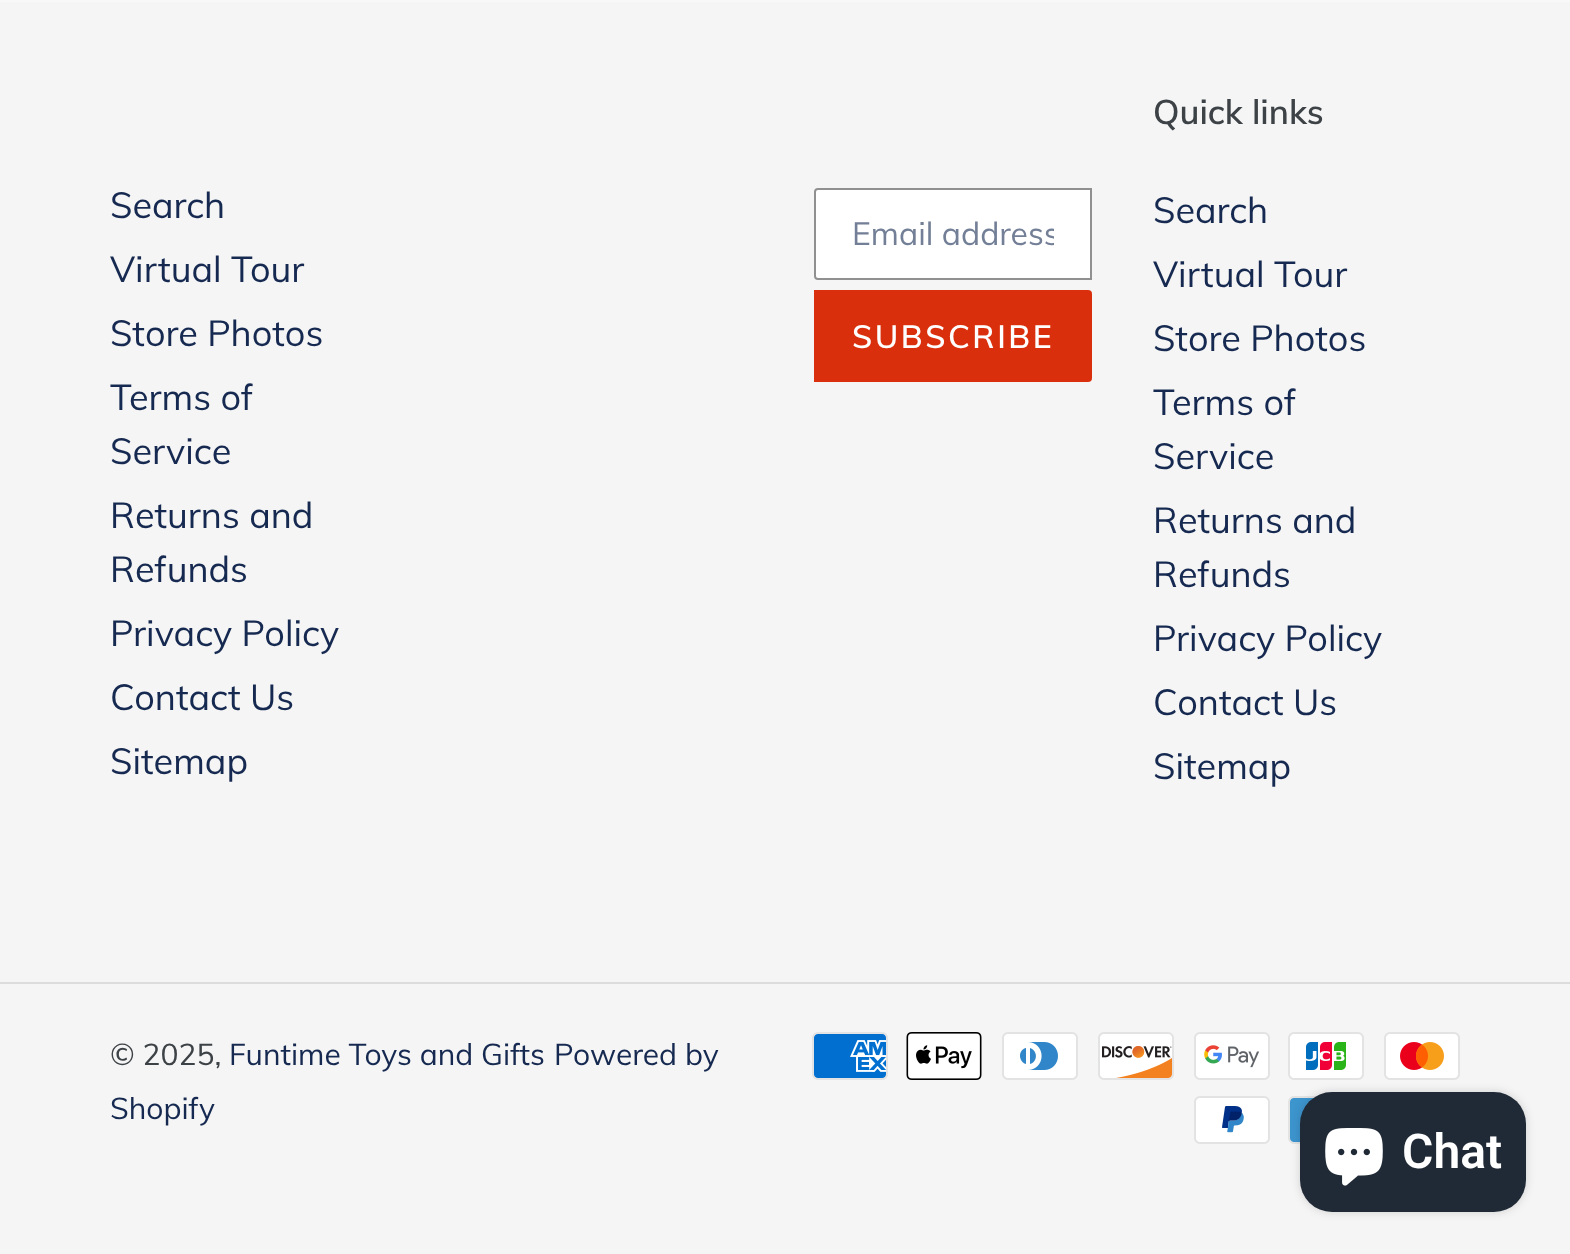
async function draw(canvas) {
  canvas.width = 1570;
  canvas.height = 1254;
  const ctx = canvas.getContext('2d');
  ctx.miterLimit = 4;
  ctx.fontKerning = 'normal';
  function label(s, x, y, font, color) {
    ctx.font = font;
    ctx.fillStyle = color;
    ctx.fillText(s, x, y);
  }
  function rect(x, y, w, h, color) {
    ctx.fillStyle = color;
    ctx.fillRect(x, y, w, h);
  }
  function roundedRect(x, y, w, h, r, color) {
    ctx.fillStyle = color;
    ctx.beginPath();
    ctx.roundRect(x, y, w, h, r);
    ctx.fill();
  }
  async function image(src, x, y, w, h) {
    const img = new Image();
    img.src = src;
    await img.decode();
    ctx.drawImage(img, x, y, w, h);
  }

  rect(0, 0, 1570, 1254, '#f8f8f8');
  rect(0, 2, 1570, 1252, '#f5f5f5');
  label('Search', 110, 218, '36px Muli', '#162950');
  label('Virtual Tour', 110, 282, '36px Muli', '#162950');
  label('Store Photos', 110, 346, '36px Muli', '#162950');
  label('Terms of', 110, 410, '36px Muli', '#162950');
  label('Service', 110, 464, '36px Muli', '#162950');
  label('Returns and', 110, 528, '36px Muli', '#162950');
  label('Refunds', 110, 582, '36px Muli', '#162950');
  label('Privacy Policy', 110, 646, '36px Muli', '#162950');
  label('Contact Us', 110, 710, '36px Muli', '#162950');
  label('Sitemap', 110, 774, '36px Muli', '#162950');
  ctx.fillStyle = '#fff';
  ctx.beginPath();
  ctx.roundRect(815, 189, 276, 90, [3, 0, 0, 3]);
  ctx.fill();
  ctx.strokeStyle = '#909090';
  ctx.lineWidth = 2;
  ctx.stroke();
  ctx.save();
  ctx.beginPath();
  ctx.rect(852, 212, 202, 40);
  ctx.clip();
  label('Email address', 852, 245, '32px Muli', '#737f96');
  ctx.restore();
  ctx.fillStyle = '#da2f0c';
  ctx.beginPath();
  ctx.roundRect(814, 290, 278, 92, [0, 4, 4, 0]);
  ctx.fill();
  ctx.letterSpacing = '2.5px';
  label('SUBSCRIBE', 852, 348, '600 32px Muli', '#fff');
  ctx.letterSpacing = '0px';
  label('Quick links', 1153, 124, '600 34px Muli', '#3d4246');
  label('Search', 1153, 223, '36px Muli', '#162950');
  label('Virtual Tour', 1153, 287, '36px Muli', '#162950');
  label('Store Photos', 1153, 351, '36px Muli', '#162950');
  label('Terms of', 1153, 415, '36px Muli', '#162950');
  label('Service', 1153, 469, '36px Muli', '#162950');
  label('Returns and', 1153, 533, '36px Muli', '#162950');
  label('Refunds', 1153, 587, '36px Muli', '#162950');
  label('Privacy Policy', 1153, 651, '36px Muli', '#162950');
  label('Contact Us', 1153, 715, '36px Muli', '#162950');
  label('Sitemap', 1153, 779, '36px Muli', '#162950');
  rect(0, 982, 1570, 2, '#dcdcdc');
  label('© 2025,', 110, 1065, '30px Muli', '#3d4246');
  label('Funtime Toys and Gifts', 229, 1065, '30px Muli', '#162950');
  label('Powered by', 554, 1065, '30px Muli', '#162950');
  label('Shopify', 110, 1119, '30px Muli', '#162950');
  await image('assets/img1.png', 812, 1032, 76, 48);
  await image('assets/img2.png', 906, 1032, 76, 48);
  await image('assets/img3.png', 1002, 1032, 76, 48);
  await image('assets/img4.png', 1098, 1032, 76, 48);
  await image('assets/img5.png', 1194, 1032, 76, 48);
  await image('assets/img6.png', 1288, 1032, 76, 48);
  await image('assets/img7.png', 1384, 1032, 76, 48);
  await image('assets/img8.png', 1194, 1096, 76, 48);
  await image('assets/img9.png', 1288, 1096, 29, 48);
  ctx.fillStyle = '#00000026';
  ctx.filter = 'blur(5px)';
  ctx.beginPath();
  ctx.roundRect(1300, 1092, 226, 120, 32);
  ctx.fill();
  ctx.filter = 'none';
  roundedRect(1300, 1092, 226, 120, 32, '#202a36');
  await image('assets/img10.png', 1325, 1128, 58, 58);
  label('Chat', 1402, 1168, '600 48px Roboto', '#fff');
}

draw(document.querySelector('canvas'));
